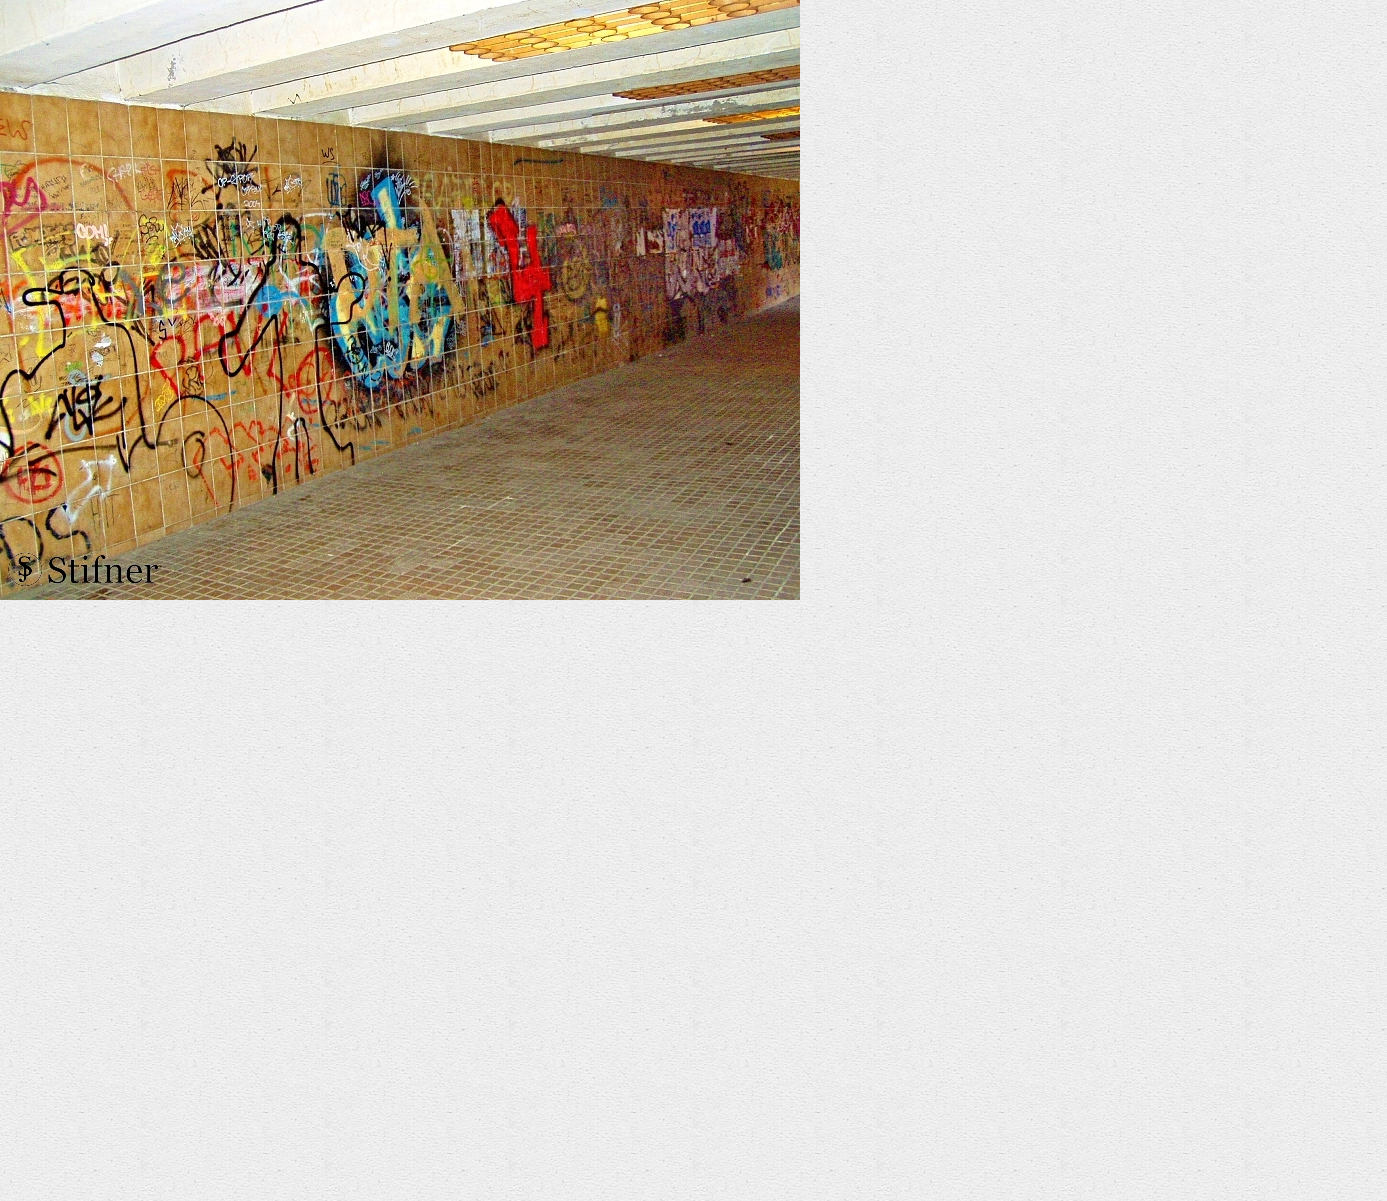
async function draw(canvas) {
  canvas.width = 1387;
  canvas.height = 1201;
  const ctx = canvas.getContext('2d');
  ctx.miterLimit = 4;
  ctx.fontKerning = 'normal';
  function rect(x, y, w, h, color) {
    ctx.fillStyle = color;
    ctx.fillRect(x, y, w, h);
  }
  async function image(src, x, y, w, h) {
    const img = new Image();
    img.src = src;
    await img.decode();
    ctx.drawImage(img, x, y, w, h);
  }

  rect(0, 0, 1387, 1201, '#fff');
  await image('assets/img1.png', 0, 0, 1387, 1201);
  await image('assets/img2.png', 0, 0, 800, 600);
}

draw(document.querySelector('canvas'));
